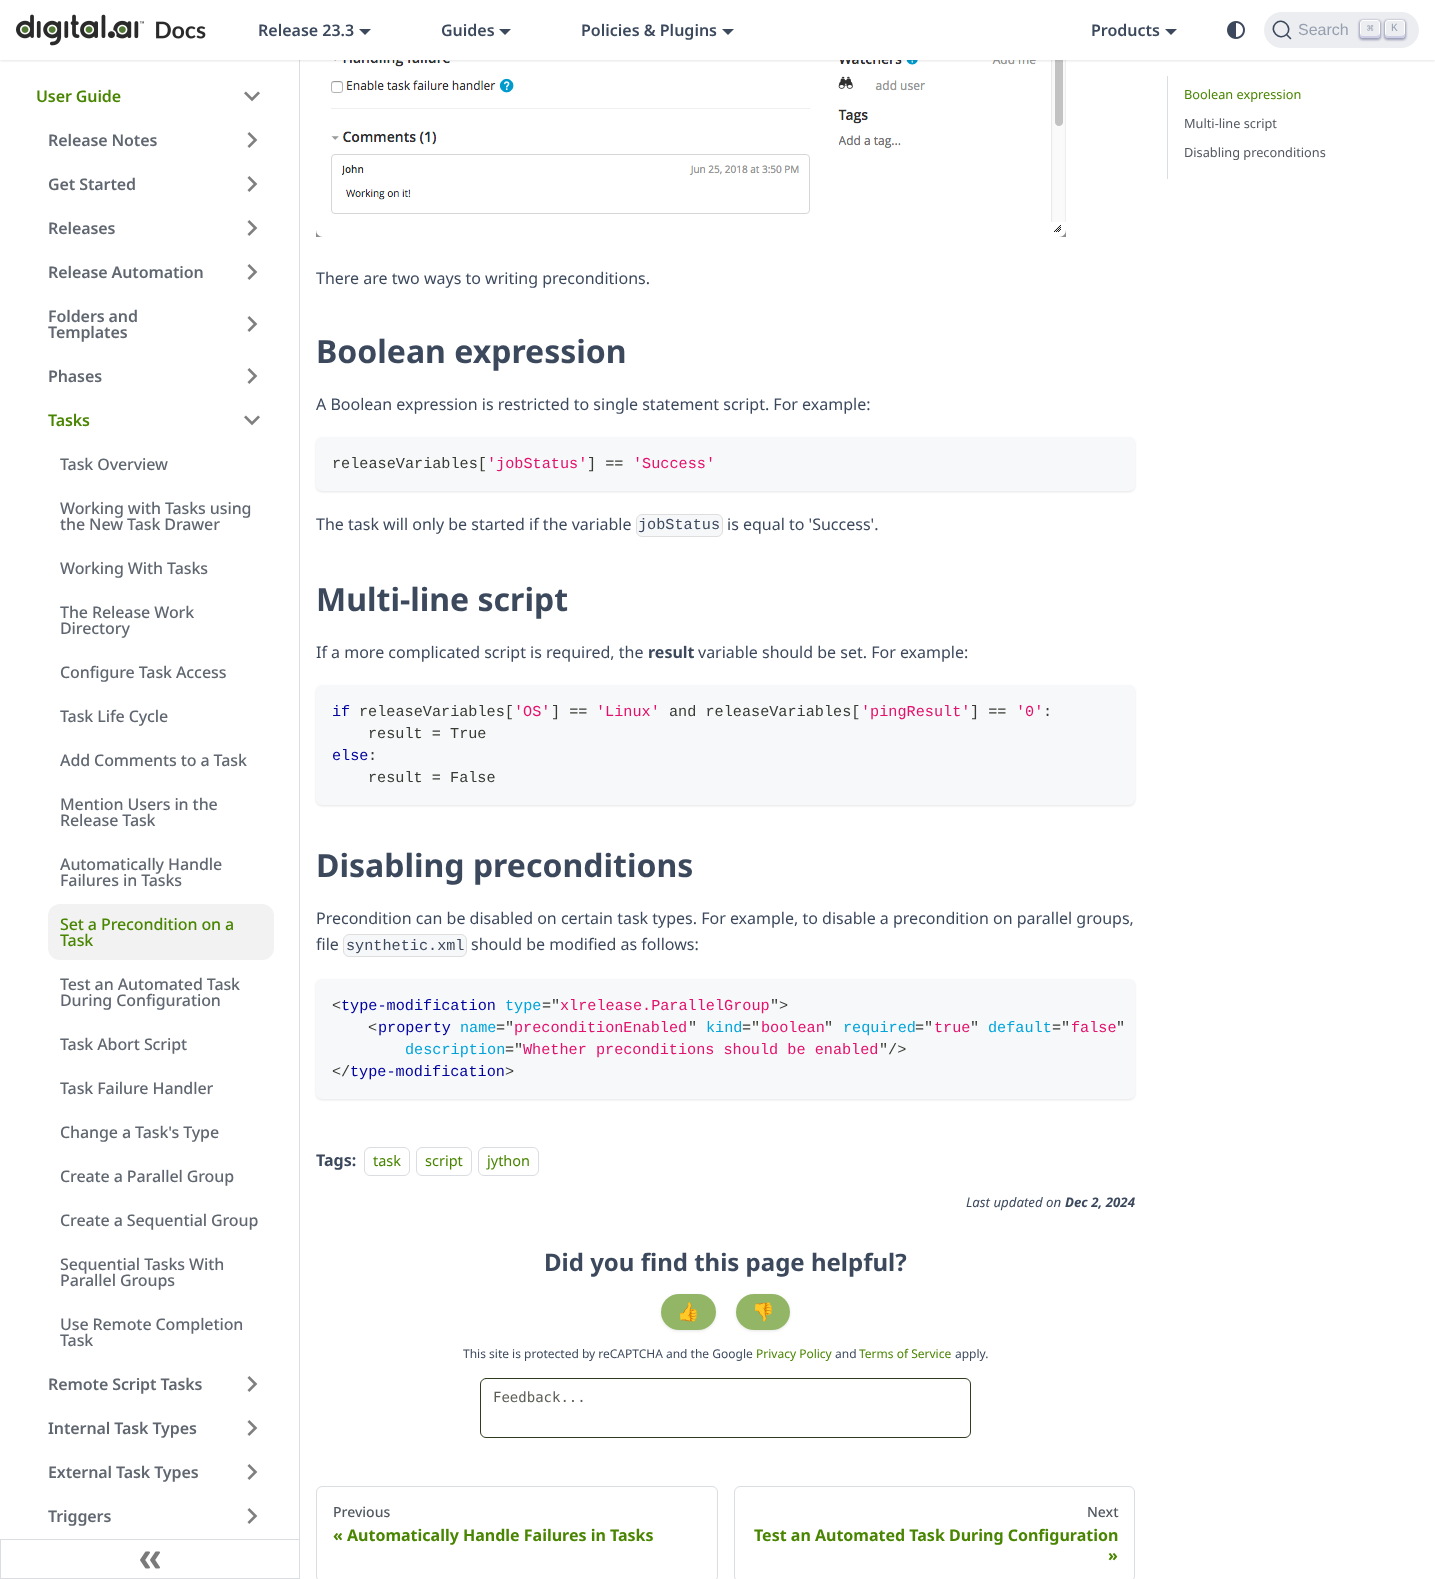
async function draw(canvas) {
  canvas.width = 1435;
  canvas.height = 1579;
  const ctx = canvas.getContext('2d');
  ctx.miterLimit = 4;
  ctx.fontKerning = 'normal';
  function label(s, x, y, font, color) {
    ctx.font = font;
    ctx.fillStyle = color;
    ctx.fillText(s, x, y);
  }
  function rect(x, y, w, h, color) {
    ctx.fillStyle = color;
    ctx.fillRect(x, y, w, h);
  }
  function roundedRect(x, y, w, h, r, color) {
    ctx.fillStyle = color;
    ctx.beginPath();
    ctx.roundRect(x, y, w, h, r);
    ctx.fill();
  }
  async function image(src, x, y, w, h) {
    const img = new Image();
    img.src = src;
    await img.decode();
    ctx.drawImage(img, x, y, w, h);
  }
  let path;

  rect(0, 0, 1435, 1579, '#fff');
  rect(299, 60, 1, 1479, '#dadde1');
  await image('assets/img6.png', 316, 60, 750, 177);
  ctx.fillStyle = '#0000001a';
  ctx.filter = 'blur(1px)';
  ctx.beginPath();
  ctx.rect(0, 1, 1435, 60);
  ctx.fill();
  ctx.filter = 'none';
  rect(0, 0, 1435, 60, '#fff');
  await image('assets/img1.png', 16, 14, 190, 32);
  label('Release 23.3', 258, 36, '600 16px Noto Sans', '#3c495d');
  path = new Path2D('M359 29H371L365 35Z');
  ctx.fill(path);
  label('Guides', 441, 36, '600 16px Noto Sans', '#3c495d');
  path = new Path2D('M499 29H511L505 35Z');
  ctx.fill(path);
  label('Policies & Plugins', 581, 36, '600 16px Noto Sans', '#3c495d');
  path = new Path2D('M722 29H734L728 35Z');
  ctx.fill(path);
  label('Products', 1091, 36, '600 16px Noto Sans', '#3c495d');
  path = new Path2D('M1165 29H1177L1171 35Z');
  ctx.fill(path);
  await image('assets/img2.png', 1227, 21, 18, 18);
  roundedRect(1264, 12, 155, 36, 18, '#ebedf0');
  path = new Path2D('M1286.5 34.5L1290.5 38.5L1286.5 34.5C1279.5 41.5 1268.5 30.5 1275.5 23.5C1282.5 16.5 1293.5 27.5 1286.5 34.5Z');
  ctx.strokeStyle = '#3c495d';
  ctx.lineWidth = 1.6;
  ctx.lineCap = 'round';
  ctx.lineJoin = 'round';
  ctx.stroke(path);
  label('Search', 1298, 35, '16px Liberation Sans', '#969faf');
  ctx.fillStyle = '#1e235a66';
  ctx.filter = 'blur(1px)';
  ctx.beginPath();
  ctx.roundRect(1359, 20, 22, 20, 4);
  ctx.fill();
  ctx.filter = 'none';
  ctx.fillStyle = '#ebedf0';
  ctx.beginPath();
  ctx.roundRect(1360.5, 20.5, 19, 17, 2.5);
  ctx.fill();
  ctx.strokeStyle = '#fff';
  ctx.lineWidth = 1;
  ctx.lineJoin = 'miter';
  ctx.stroke();
  ctx.fillStyle = '#cdcde6';
  path = new Path2D('M1380 32.5C1380 35 1378.5 36 1375 36H1363C1361 36 1360 34.5 1360 32.5V35C1360 36.5 1361.5 38 1363 38H1377C1378.5 38 1380 36.5 1380 35Z');
  ctx.fill(path);
  label('⌘', 1367, 32, '11px DejaVu Sans Mono', '#969faf');
  ctx.fillStyle = '#1e235a66';
  ctx.filter = 'blur(1px)';
  ctx.beginPath();
  ctx.roundRect(1384, 20, 22, 20, 4);
  ctx.fill();
  ctx.filter = 'none';
  ctx.fillStyle = '#ebedf0';
  ctx.beginPath();
  ctx.roundRect(1385.5, 20.5, 19, 17, 2.5);
  ctx.fill();
  ctx.stroke();
  ctx.fillStyle = '#cdcde6';
  path = new Path2D('M1405 32.5C1405 35 1403.5 36 1400 36H1388C1386 36 1385 34.5 1385 32.5V35C1385 36.5 1386.5 38 1388 38H1402C1403.5 38 1405 36.5 1405 35Z');
  ctx.fill(path);
  label('K', 1391, 31, '11px Liberation Mono', '#969faf');
  ctx.letterSpacing = '-0.1px';
  label('User Guide', 36, 102, '600 16px Noto Sans', '#498500');
  await image('assets/img3.png', 244, 91, 16, 11);
  label('Release Notes', 48, 146, '600 16px Noto Sans', '#606770');
  await image('assets/img4.png', 247, 132, 11, 16);
  label('Get Started', 48, 190, '600 16px Noto Sans', '#606770');
  await image('assets/img4.png', 247, 176, 11, 16);
  label('Releases', 48, 234, '600 16px Noto Sans', '#606770');
  await image('assets/img4.png', 247, 220, 11, 16);
  label('Release Automation', 48, 278, '600 16px Noto Sans', '#606770');
  await image('assets/img4.png', 247, 264, 11, 16);
  label('Folders and', 48, 322, '600 16px Noto Sans', '#606770');
  label('Templates', 48, 338, '600 16px Noto Sans', '#606770');
  await image('assets/img4.png', 247, 316, 11, 16);
  label('Phases', 48, 382, '600 16px Noto Sans', '#606770');
  await image('assets/img4.png', 247, 368, 11, 16);
  label('Tasks', 48, 426, '600 16px Noto Sans', '#498500');
  await image('assets/img3.png', 244, 415, 16, 11);
  label('Task Overview', 60, 470, '500 16px Noto Sans', '#606770');
  label('Working with Tasks using', 60, 514, '500 16px Noto Sans', '#606770');
  label('the New Task Drawer', 60, 530, '500 16px Noto Sans', '#606770');
  label('Working With Tasks', 60, 574, '500 16px Noto Sans', '#606770');
  label('The Release Work', 60, 618, '500 16px Noto Sans', '#606770');
  label('Directory', 60, 634, '500 16px Noto Sans', '#606770');
  label('Configure Task Access', 60, 678, '500 16px Noto Sans', '#606770');
  label('Task Life Cycle', 60, 722, '500 16px Noto Sans', '#606770');
  label('Add Comments to a Task', 60, 766, '500 16px Noto Sans', '#606770');
  label('Mention Users in the', 60, 810, '500 16px Noto Sans', '#606770');
  label('Release Task', 60, 826, '500 16px Noto Sans', '#606770');
  label('Automatically Handle', 60, 870, '500 16px Noto Sans', '#606770');
  label('Failures in Tasks', 60, 886, '500 16px Noto Sans', '#606770');
  roundedRect(48, 904, 226, 56, 12, '#f2f2f2');
  label('Set a Precondition on a', 60, 930, '500 16px Noto Sans', '#498500');
  label('Task', 60, 946, '500 16px Noto Sans', '#498500');
  label('Test an Automated Task', 60, 990, '500 16px Noto Sans', '#606770');
  label('During Configuration', 60, 1006, '500 16px Noto Sans', '#606770');
  label('Task Abort Script', 60, 1050, '500 16px Noto Sans', '#606770');
  label('Task Failure Handler', 60, 1094, '500 16px Noto Sans', '#606770');
  label('Change a Task\'s Type', 60, 1138, '500 16px Noto Sans', '#606770');
  label('Create a Parallel Group', 60, 1182, '500 16px Noto Sans', '#606770');
  label('Create a Sequential Group', 60, 1226, '500 16px Noto Sans', '#606770');
  label('Sequential Tasks With', 60, 1270, '500 16px Noto Sans', '#606770');
  label('Parallel Groups', 60, 1286, '500 16px Noto Sans', '#606770');
  label('Use Remote Completion', 60, 1330, '500 16px Noto Sans', '#606770');
  label('Task', 60, 1346, '500 16px Noto Sans', '#606770');
  label('Remote Script Tasks', 48, 1390, '600 16px Noto Sans', '#606770');
  await image('assets/img4.png', 247, 1376, 11, 16);
  label('Internal Task Types', 48, 1434, '600 16px Noto Sans', '#606770');
  await image('assets/img4.png', 247, 1420, 11, 16);
  label('External Task Types', 48, 1478, '600 16px Noto Sans', '#606770');
  await image('assets/img4.png', 247, 1464, 11, 16);
  label('Triggers', 48, 1522, '600 16px Noto Sans', '#606770');
  await image('assets/img4.png', 247, 1508, 11, 16);
  ctx.strokeStyle = '#dadde1';
  ctx.strokeRect(0.5, 1539.5, 299, 39);
  await image('assets/img5.png', 140, 1551, 20, 18);
  rect(1167, 76, 1, 103, '#dadde1');
  ctx.letterSpacing = '0px';
  label('Boolean expression', 1184, 99, '12.75px Noto Sans', '#498500');
  label('Multi-line script', 1184, 128, '12.75px Noto Sans', '#525860');
  label('Disabling preconditions', 1184, 157, '12.75px Noto Sans', '#525860');
  label('There are two ways to writing preconditions.', 316, 284, '16px Noto Sans', '#3c495d');
  label('Boolean expression', 316, 363, 'bold 32px Noto Sans', '#3c495d');
  label('A Boolean expression is restricted to single statement script. For example:', 316, 410, '16px Noto Sans', '#3c495d');
  ctx.fillStyle = '#0000001a';
  ctx.filter = 'blur(1px)';
  ctx.beginPath();
  ctx.roundRect(316, 438, 819, 54, 6);
  ctx.fill();
  ctx.filter = 'none';
  roundedRect(316, 437, 819, 54, 6, '#f6f8fa');
  label('releaseVariables[', 332, 468, '15.2px Liberation Mono', '#393a34');
  label('\'jobStatus\'', 487, 468, '15.2px Liberation Mono', '#e3116c');
  label('] ==', 587, 468, '15.2px Liberation Mono', '#393a34');
  label('\'Success\'', 633, 468, '15.2px Liberation Mono', '#e3116c');
  label('The task will only be started if the variable', 316, 530, '16px Noto Sans', '#3c495d');
  ctx.fillStyle = '#f6f7f8';
  ctx.beginPath();
  ctx.roundRect(636.5, 514.5, 86, 22, 5.5);
  ctx.fill();
  ctx.strokeStyle = '#dededf';
  ctx.stroke();
  label('jobStatus', 638, 529, '15.2px Liberation Mono', '#3c495d');
  label('is equal to \'Success\'.', 727, 530, '16px Noto Sans', '#3c495d');
  label('Multi-line script', 316, 611, 'bold 32px Noto Sans', '#3c495d');
  label('If a more complicated script is required, the', 316, 658, '16px Noto Sans', '#3c495d');
  label('result', 648, 658, 'bold 16px Noto Sans', '#3c495d');
  label('variable should be set. For example:', 698, 658, '16px Noto Sans', '#3c495d');
  ctx.fillStyle = '#0000001a';
  ctx.filter = 'blur(1px)';
  ctx.beginPath();
  ctx.roundRect(316, 686, 819, 120, 6);
  ctx.fill();
  ctx.filter = 'none';
  roundedRect(316, 685, 819, 120, 6, '#f6f8fa');
  label('if', 332, 716, '15.2px Liberation Mono', '#00009f');
  label('releaseVariables[', 359, 716, '15.2px Liberation Mono', '#393a34');
  label('\'OS\'', 514, 716, '15.2px Liberation Mono', '#e3116c');
  label('] ==', 551, 716, '15.2px Liberation Mono', '#393a34');
  label('\'Linux\'', 596, 716, '15.2px Liberation Mono', '#e3116c');
  label('and releaseVariables[', 669, 716, '15.2px Liberation Mono', '#393a34');
  label('\'pingResult\'', 861, 716, '15.2px Liberation Mono', '#e3116c');
  label('] ==', 970, 716, '15.2px Liberation Mono', '#393a34');
  label('\'0\'', 1016, 716, '15.2px Liberation Mono', '#e3116c');
  label(':', 1043, 716, '15.2px Liberation Mono', '#393a34');
  label('result = True', 368, 738, '15.2px Liberation Mono', '#393a34');
  label('else', 332, 760, '15.2px Liberation Mono', '#00009f');
  label(':', 368, 760, '15.2px Liberation Mono', '#393a34');
  label('result = False', 368, 782, '15.2px Liberation Mono', '#393a34');
  label('Disabling preconditions', 316, 877, 'bold 32px Noto Sans', '#3c495d');
  label('Precondition can be disabled on certain task types. For example, to disable a precondition on parallel groups,', 316, 924, '16px Noto Sans', '#3c495d');
  label('file', 316, 950, '16px Noto Sans', '#3c495d');
  ctx.fillStyle = '#f6f7f8';
  ctx.beginPath();
  ctx.roundRect(343.5, 934.5, 123, 22, 5.5);
  ctx.fill();
  ctx.stroke();
  label('synthetic.xml', 346, 950, '15.2px Liberation Mono', '#3c495d');
  label('should be modified as follows:', 471, 950, '16px Noto Sans', '#3c495d');
  ctx.fillStyle = '#0000001a';
  ctx.filter = 'blur(1px)';
  ctx.beginPath();
  ctx.roundRect(316, 980, 819, 120, 6);
  ctx.fill();
  ctx.filter = 'none';
  roundedRect(316, 979, 819, 120, 6, '#f6f8fa');
  label('<', 332, 1010, '15.2px Liberation Mono', '#393a34');
  label('type-modification', 341, 1010, '15.2px Liberation Mono', '#00009f');
  label('type', 505, 1010, '15.2px Liberation Mono', '#00a4db');
  label('="', 542, 1010, '15.2px Liberation Mono', '#393a34');
  label('xlrelease.ParallelGroup', 560, 1010, '15.2px Liberation Mono', '#e3116c');
  label('">', 770, 1010, '15.2px Liberation Mono', '#393a34');
  label('<', 368, 1032, '15.2px Liberation Mono', '#393a34');
  label('property', 378, 1032, '15.2px Liberation Mono', '#00009f');
  label('name', 460, 1032, '15.2px Liberation Mono', '#00a4db');
  label('="', 496, 1032, '15.2px Liberation Mono', '#393a34');
  label('preconditionEnabled', 514, 1032, '15.2px Liberation Mono', '#e3116c');
  label('"', 688, 1032, '15.2px Liberation Mono', '#393a34');
  label('kind', 706, 1032, '15.2px Liberation Mono', '#00a4db');
  label('="', 742, 1032, '15.2px Liberation Mono', '#393a34');
  label('boolean', 761, 1032, '15.2px Liberation Mono', '#e3116c');
  label('"', 824, 1032, '15.2px Liberation Mono', '#393a34');
  label('required', 843, 1032, '15.2px Liberation Mono', '#00a4db');
  label('="', 915, 1032, '15.2px Liberation Mono', '#393a34');
  label('true', 934, 1032, '15.2px Liberation Mono', '#e3116c');
  label('"', 970, 1032, '15.2px Liberation Mono', '#393a34');
  label('default', 988, 1032, '15.2px Liberation Mono', '#00a4db');
  label('="', 1052, 1032, '15.2px Liberation Mono', '#393a34');
  label('false', 1071, 1032, '15.2px Liberation Mono', '#e3116c');
  label('"', 1116, 1032, '15.2px Liberation Mono', '#393a34');
  label('description', 405, 1054, '15.2px Liberation Mono', '#00a4db');
  label('="', 505, 1054, '15.2px Liberation Mono', '#393a34');
  label('Whether preconditions should be enabled', 523, 1054, '15.2px Liberation Mono', '#e3116c');
  label('"/>', 879, 1054, '15.2px Liberation Mono', '#393a34');
  label('<\/', 332, 1076, '15.2px Liberation Mono', '#393a34');
  label('type-modification', 350, 1076, '15.2px Liberation Mono', '#00009f');
  label('>', 505, 1076, '15.2px Liberation Mono', '#393a34');
  label('Tags:', 316, 1166, 'bold 16px Noto Sans', '#3c495d');
  ctx.beginPath();
  ctx.roundRect(364.5, 1147.5, 45, 28, 5.5);
  ctx.strokeStyle = '#dadde1';
  ctx.stroke();
  label('task', 373, 1166, '14.5px Noto Sans', '#498500');
  ctx.beginPath();
  ctx.roundRect(416.5, 1147.5, 55, 28, 5.5);
  ctx.stroke();
  label('script', 425, 1166, '14.5px Noto Sans', '#498500');
  ctx.beginPath();
  ctx.roundRect(478.5, 1147.5, 60, 28, 5.5);
  ctx.stroke();
  label('jython', 487, 1166, '14.5px Noto Sans', '#498500');
  label('Last updated on', 966, 1207, 'italic 13.25px Noto Sans', '#3c495d');
  label('Dec 2, 2024', 1065, 1207, 'italic bold 13.25px Noto Sans', '#3c495d');
  label('Did you find this page helpful?', 544, 1271, 'bold 24px Noto Sans', '#3c495d');
  ctx.save();
  path = new Path2D('M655 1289H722V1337H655ZM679 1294H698C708 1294 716 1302 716 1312C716 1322 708 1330 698 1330H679C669 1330 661 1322 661 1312C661 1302 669 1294 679 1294Z');
  ctx.clip(path, 'evenodd');
  ctx.fillStyle = '#0000001a';
  ctx.filter = 'blur(1.5px)';
  ctx.beginPath();
  ctx.roundRect(661, 1295, 55, 36, 18);
  ctx.fill();
  ctx.filter = 'none';
  ctx.restore();
  roundedRect(661, 1294, 55, 36, 18, '#49850099');
  label('👍', 677, 1318, '18px Noto Color Emoji', '#fff');
  ctx.save();
  path = new Path2D('M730 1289H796V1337H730ZM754 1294H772C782 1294 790 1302 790 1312C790 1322 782 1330 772 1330H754C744 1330 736 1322 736 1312C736 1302 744 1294 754 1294Z');
  ctx.clip(path, 'evenodd');
  ctx.fillStyle = '#0000001a';
  ctx.filter = 'blur(1.5px)';
  ctx.beginPath();
  ctx.roundRect(736, 1295, 54, 36, 18);
  ctx.fill();
  ctx.filter = 'none';
  ctx.restore();
  roundedRect(736, 1294, 54, 36, 18, '#49850099');
  label('👎', 752, 1318, '18px Noto Color Emoji', '#fff');
  label('This site is protected by reCAPTCHA and the Google', 463, 1358, '12px Noto Sans', '#3c495d');
  label('Privacy Policy', 756, 1358, '12px Noto Sans', '#498500');
  label('and', 835, 1358, '12px Noto Sans', '#3c495d');
  label('Terms of Service', 859, 1358, '12px Noto Sans', '#498500');
  label('apply.', 955, 1358, '12px Noto Sans', '#3c495d');
  ctx.beginPath();
  ctx.roundRect(480.5, 1378.5, 490, 59, 5.5);
  ctx.strokeStyle = '#2f3c20';
  ctx.stroke();
  label('Feedback...', 493, 1402, '14px DejaVu Sans Mono', '#5a5e55');
  ctx.beginPath();
  ctx.roundRect(316.5, 1486.5, 401, 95, 5.5);
  ctx.strokeStyle = '#dadde1';
  ctx.stroke();
  label('Previous', 333, 1517, '500 14px Noto Sans', '#525860');
  label('« Automatically Handle Failures in Tasks', 333, 1541, 'bold 16px Noto Sans', '#498500');
  ctx.beginPath();
  ctx.roundRect(734.5, 1486.5, 400, 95, 5.5);
  ctx.stroke();
  label('Next', 1087, 1517, '500 14px Noto Sans', '#525860');
  label('Test an Automated Task During Configuration', 754, 1541, 'bold 16px Noto Sans', '#498500');
  label('»', 1108, 1561, 'bold 16px Noto Sans', '#498500');
}

draw(document.querySelector('canvas'));
